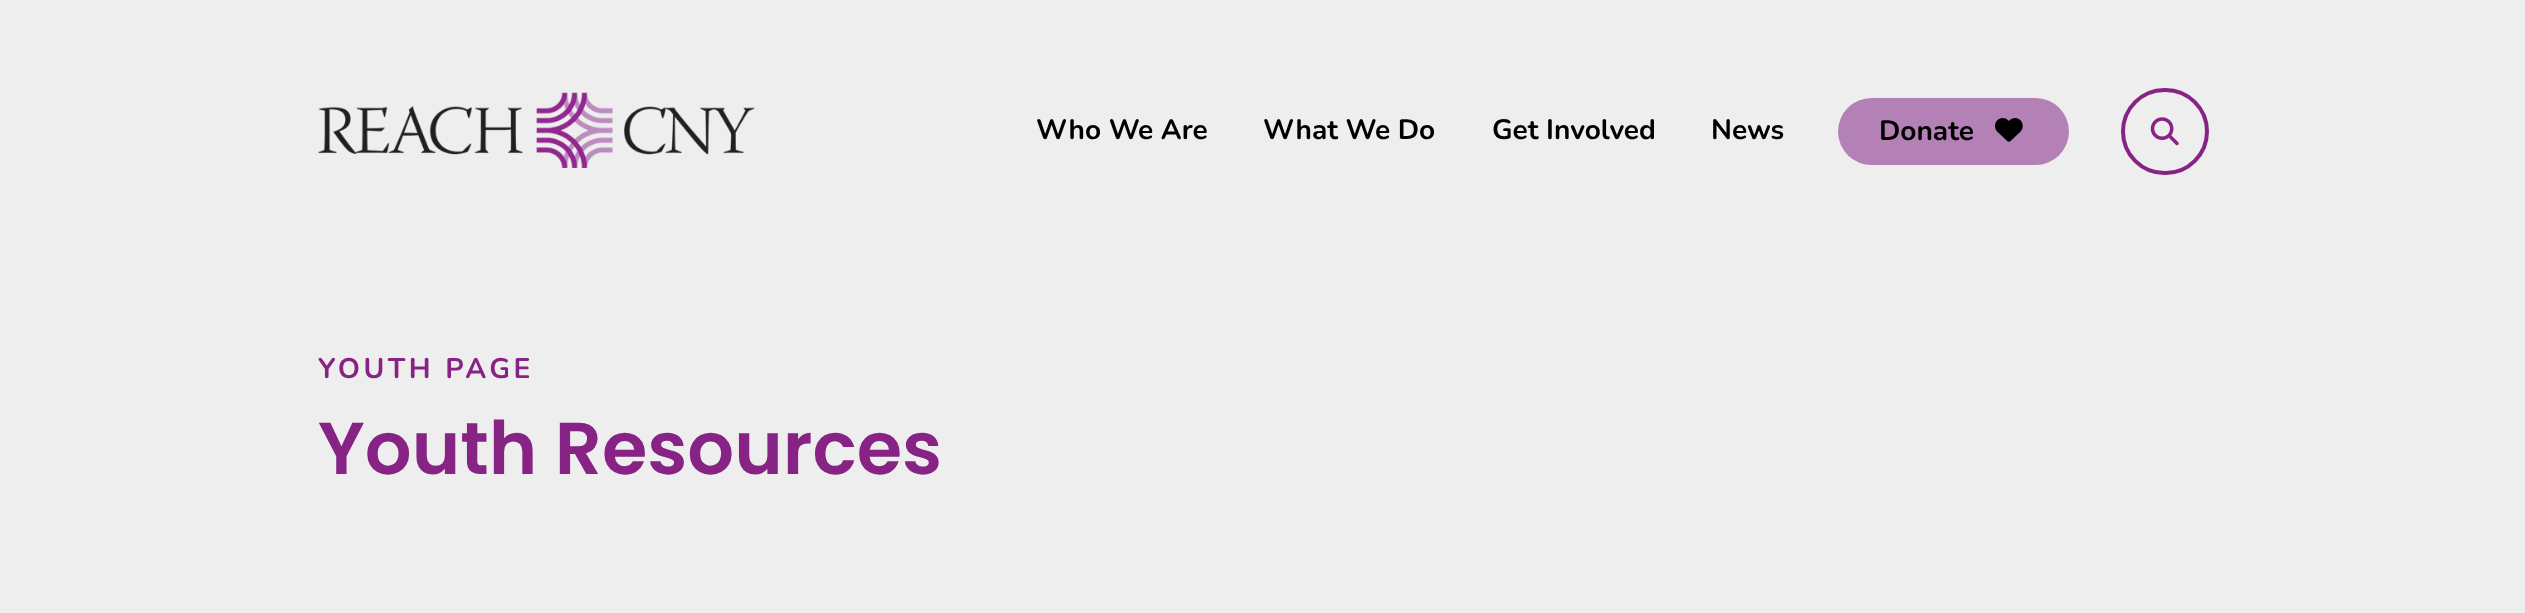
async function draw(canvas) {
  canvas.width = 2525;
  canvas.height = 613;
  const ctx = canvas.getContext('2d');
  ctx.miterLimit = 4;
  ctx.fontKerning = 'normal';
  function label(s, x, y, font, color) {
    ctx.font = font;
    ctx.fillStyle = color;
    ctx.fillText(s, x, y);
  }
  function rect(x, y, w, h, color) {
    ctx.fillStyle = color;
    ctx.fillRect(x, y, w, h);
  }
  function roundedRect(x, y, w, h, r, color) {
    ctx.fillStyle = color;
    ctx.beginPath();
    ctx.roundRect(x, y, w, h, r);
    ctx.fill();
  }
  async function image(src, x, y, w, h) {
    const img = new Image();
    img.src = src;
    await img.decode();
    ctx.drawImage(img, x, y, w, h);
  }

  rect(0, 0, 2525, 613, '#eee');
  await image('assets/img1.png', 318, 92, 437, 76);
  label('Who We Are', 1036, 139, 'bold 28px Nunito', '#000');
  label('What We Do', 1263, 139, 'bold 28px Nunito', '#000');
  label('Get Involved', 1492, 139, 'bold 28px Nunito', '#000');
  label('News', 1711, 139, 'bold 28px Nunito', '#000');
  roundedRect(1838, 98, 231, 67, 33.5, '#b481b7');
  label('Donate', 1879, 140, 'bold 28px Nunito', '#000');
  await image('assets/img2.png', 1995, 118, 28, 24);
  ctx.beginPath();
  ctx.roundRect(2123, 90, 84, 83, 41.5);
  ctx.strokeStyle = '#872384';
  ctx.lineWidth = 4;
  ctx.stroke();
  await image('assets/img3.png', 2150, 117, 29, 29);
  ctx.letterSpacing = '3.5px';
  label('YOUTH PAGE', 318, 378, 'bold 28.25px Nunito', '#872384');
  ctx.letterSpacing = '0px';
  label('Youth Resources', 318, 474, '600 73.5px Poppins', '#872384');
}

draw(document.querySelector('canvas'));
